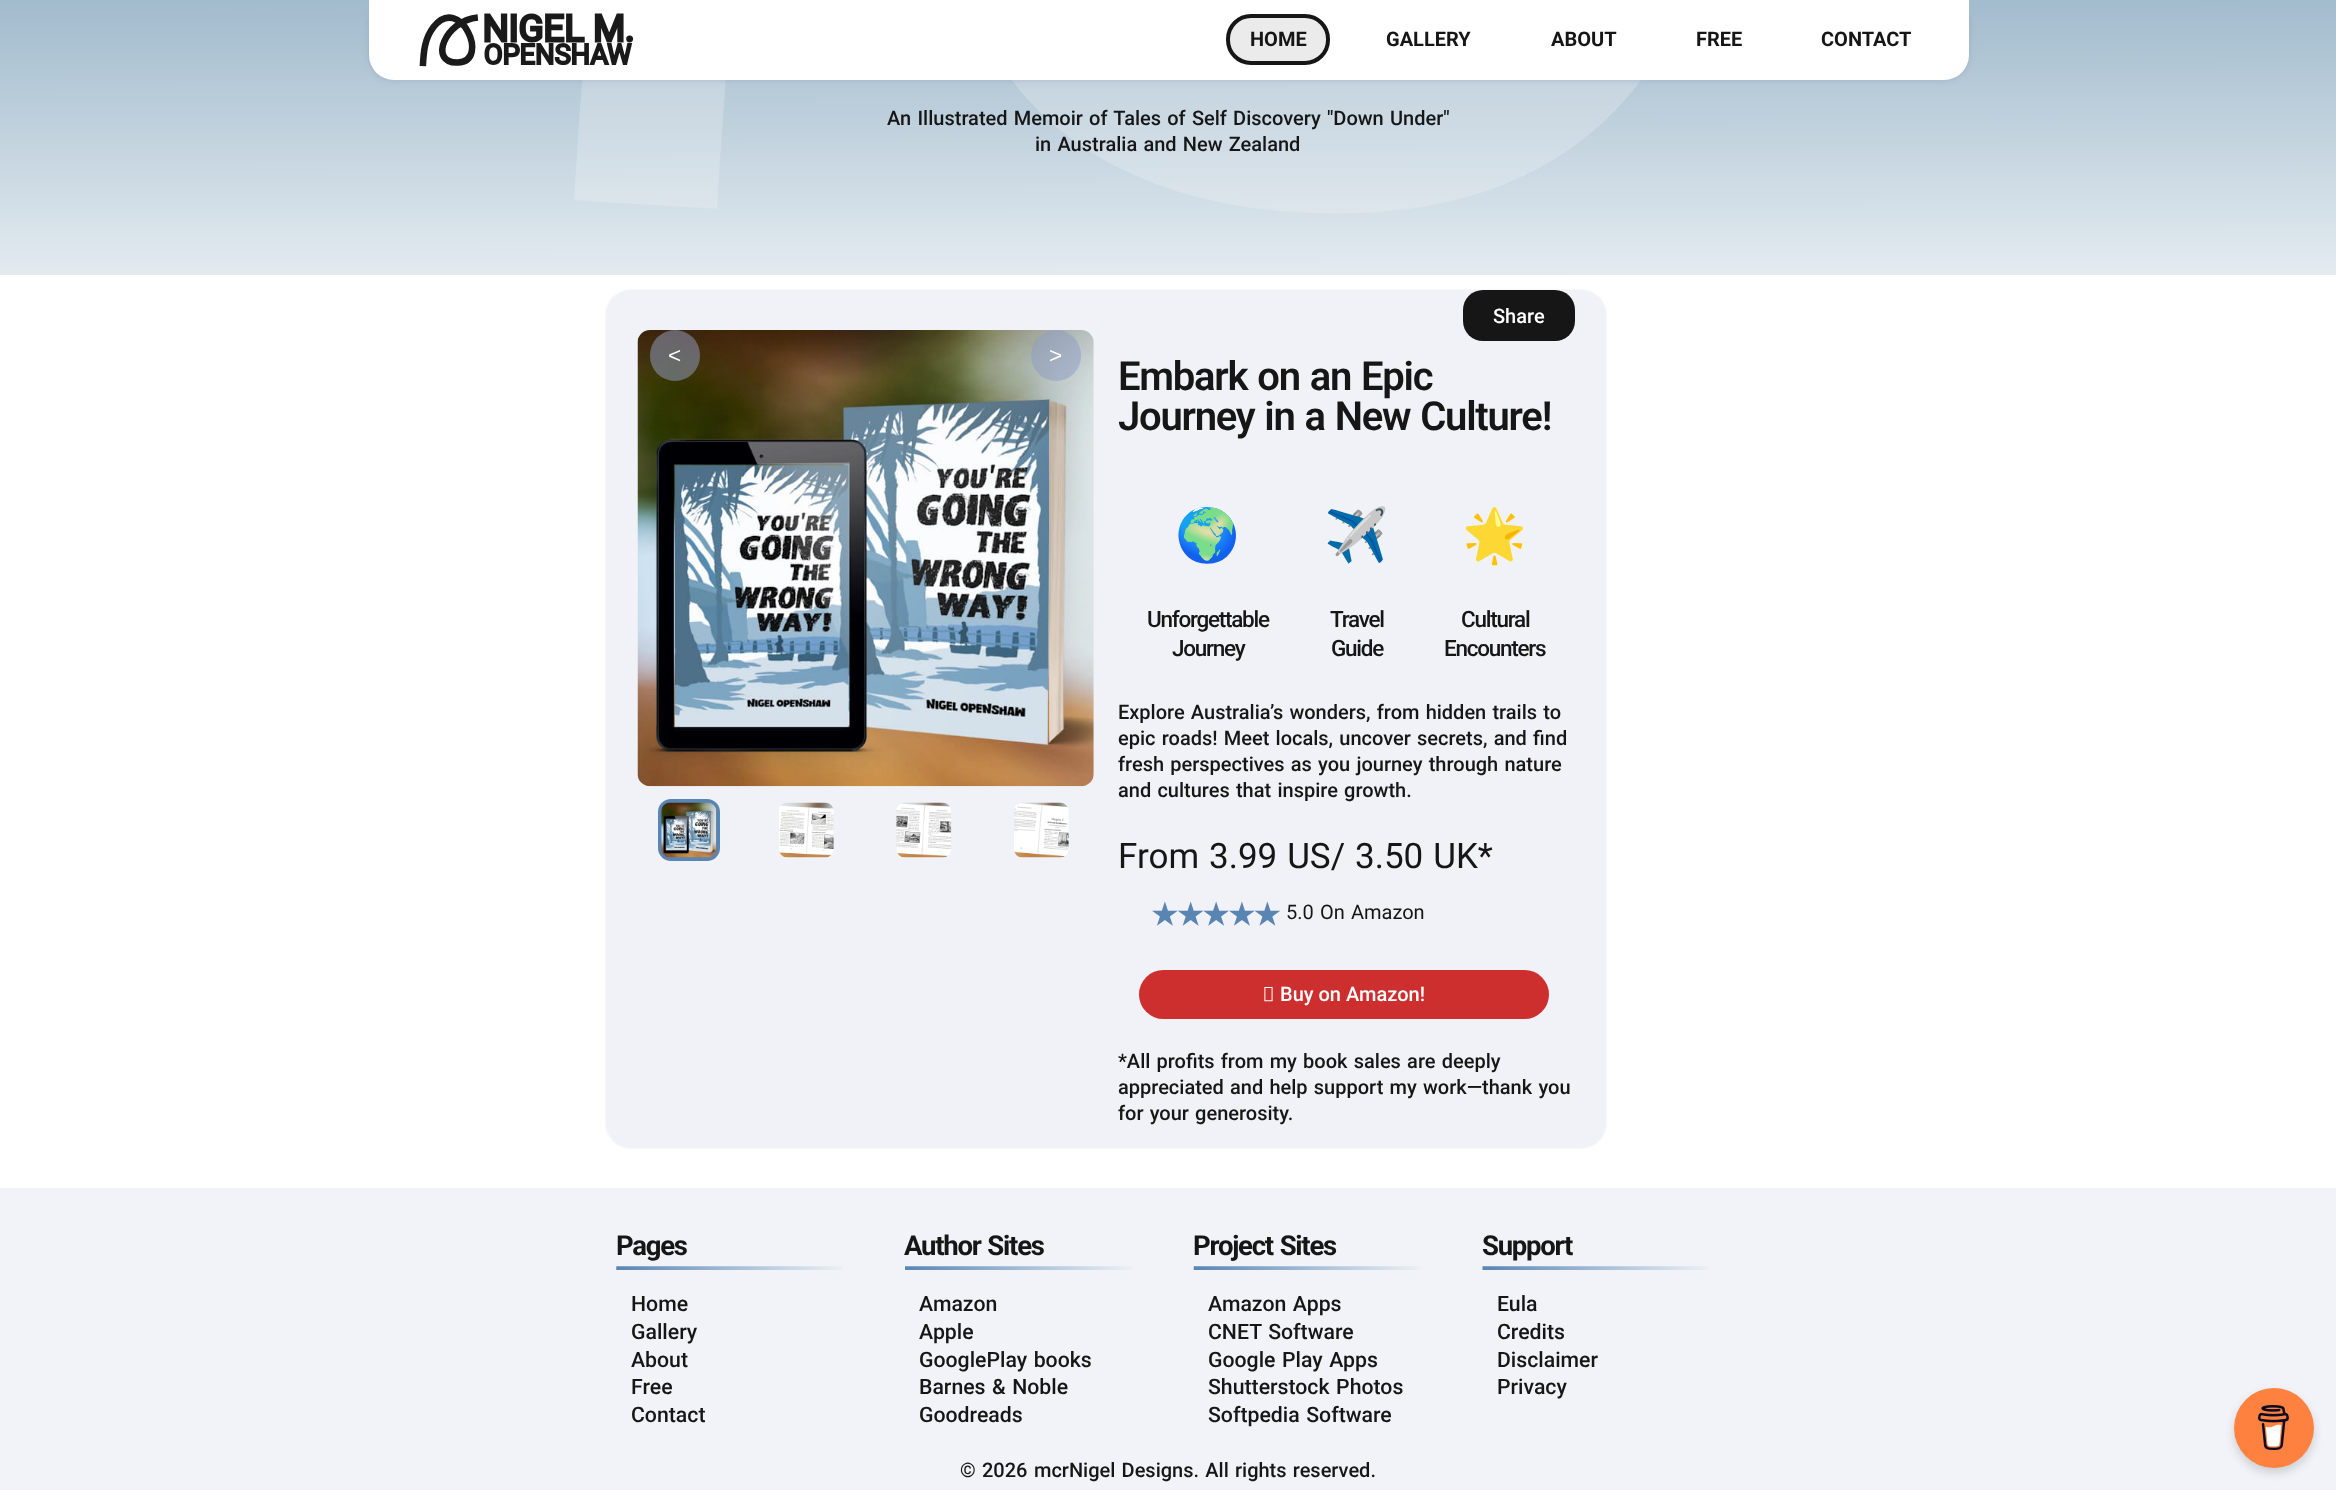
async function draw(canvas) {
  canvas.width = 2336;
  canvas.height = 1490;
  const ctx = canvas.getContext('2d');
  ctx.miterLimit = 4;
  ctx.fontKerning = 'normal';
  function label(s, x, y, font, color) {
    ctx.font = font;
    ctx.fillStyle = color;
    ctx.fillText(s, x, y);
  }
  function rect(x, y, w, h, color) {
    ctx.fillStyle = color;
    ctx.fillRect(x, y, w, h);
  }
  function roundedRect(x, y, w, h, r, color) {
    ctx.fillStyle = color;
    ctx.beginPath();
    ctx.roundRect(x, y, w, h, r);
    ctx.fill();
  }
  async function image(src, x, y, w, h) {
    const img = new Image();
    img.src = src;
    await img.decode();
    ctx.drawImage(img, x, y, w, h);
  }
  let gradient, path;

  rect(0, 0, 2336, 1490, '#fff');
  gradient = ctx.createLinearGradient(1266, 390, 1264, -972);
  gradient.addColorStop(0, '#fff');
  gradient.addColorStop(0.35, '#8dacc2');
  gradient.addColorStop(0.99, '#5b88a7');
  ctx.fillStyle = gradient;
  ctx.fillRect(0, 0, 2336, 275);
  path = new Path2D('M645.5 204.5C662.5-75.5 682-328.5 865-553.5C1396-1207.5 2014 122.5 1352.5 141.5C743 158.5 1025-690.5 1758.5-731.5');
  ctx.strokeStyle = '#f9f9f940';
  ctx.lineWidth = 143.3;
  ctx.stroke(path);
  ctx.fillStyle = '#909cc287';
  ctx.filter = 'blur(3px)';
  ctx.beginPath();
  ctx.roundRect(369, 0, 1600, 80, 25);
  ctx.fill();
  ctx.filter = 'none';
  ctx.fillStyle = '#fff';
  ctx.beginPath();
  ctx.roundRect(369, 0, 1600, 80, [0, 0, 25, 25]);
  ctx.fill();
  await image('assets/img1.png', 419, 13, 215, 54);
  ctx.fillStyle = '#ebebeb';
  ctx.beginPath();
  ctx.roundRect(1228, 16, 100, 47, 23);
  ctx.fill();
  ctx.strokeStyle = '#161616';
  ctx.lineWidth = 4;
  ctx.stroke();
  label('HOME', 1250, 46, 'bold 20px Roboto', '#161616');
  label('GALLERY', 1386, 46, 'bold 20px Roboto', '#161616');
  label('ABOUT', 1551, 46, 'bold 20px Roboto', '#161616');
  label('FREE', 1696, 46, 'bold 20px Roboto', '#161616');
  label('CONTACT', 1821, 46, 'bold 20px Roboto', '#161616');
  ctx.wordSpacing = '1.25px';
  label('An Illustrated Memoir of Tales of Self Discovery "Down Under"', 887, 125, '500 20px Roboto', '#161616');
  label('in Australia and New Zealand', 1035, 151, '500 20px Roboto', '#161616');
  ctx.save();
  path = new Path2D('M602 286H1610V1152H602ZM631 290H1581C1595 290 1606 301 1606 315V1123C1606 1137 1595 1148 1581 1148H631C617 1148 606 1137 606 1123V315C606 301 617 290 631 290Z');
  ctx.clip(path, 'evenodd');
  ctx.fillStyle = '#cdcdcd66';
  ctx.filter = 'blur(1px)';
  ctx.beginPath();
  ctx.roundRect(606, 290, 1000, 858, 25);
  ctx.fill();
  ctx.filter = 'none';
  ctx.restore();
  roundedRect(606, 290, 1000, 858, 25, '#909cc221');
  await image('assets/img2.png', 637, 330, 457, 457);
  roundedRect(650, 330, 50, 51, 25, '#909cc287');
  ctx.wordSpacing = '0px';
  label('<', 668, 363, '22.5px Liberation Sans', '#fff');
  roundedRect(1031, 330, 50, 51, 25, '#909cc287');
  label('>', 1049, 363, '22.5px Liberation Sans', '#fff');
  ctx.beginPath();
  ctx.roundRect(660, 801, 58, 58, 11);
  ctx.strokeStyle = '#5885b2';
  ctx.stroke();
  await image('assets/img3.png', 661, 802, 56, 56);
  await image('assets/img4.png', 779, 802, 55, 56);
  await image('assets/img5.png', 896, 802, 56, 56);
  await image('assets/img6.png', 1014, 802, 55, 56);
  roundedRect(1463, 290, 112, 51, 20, '#161616');
  label('Share', 1493, 323, '500 20px Roboto', '#fff');
  ctx.letterSpacing = '-1.25px';
  ctx.wordSpacing = '1.25px';
  label('Embark on an Epic', 1118, 390, '600 40px Roboto', '#161616');
  label('Journey in a New Culture!', 1118, 430, '600 40px Roboto', '#161616');
  ctx.letterSpacing = '0px';
  ctx.wordSpacing = '0px';
  label('🌍', 1175, 553, '52px Noto Color Emoji', '#161616');
  ctx.letterSpacing = '-1.25px';
  label('Unforgettable', 1147, 627, '500 22.5px Roboto', '#161616');
  label('Journey', 1172, 656, '500 22.5px Roboto', '#161616');
  ctx.letterSpacing = '0px';
  label('✈️', 1324, 553, '52px Noto Color Emoji', '#161616');
  ctx.letterSpacing = '-1.25px';
  label('Travel', 1330, 627, '500 22.5px Roboto', '#161616');
  label('Guide', 1331, 656, '500 22.5px Roboto', '#161616');
  ctx.letterSpacing = '0px';
  label('🌟️', 1462, 553, '52px Noto Color Emoji', '#161616');
  ctx.letterSpacing = '-1.25px';
  label('Cultural', 1461, 627, '500 22.5px Roboto', '#161616');
  label('Encounters', 1444, 656, '500 22.5px Roboto', '#161616');
  ctx.letterSpacing = '0px';
  ctx.wordSpacing = '1.25px';
  label('Explore Australia’s wonders, from hidden trails to', 1118, 719, '500 20px Roboto', '#161616');
  label('epic roads! Meet locals, uncover secrets, and find', 1118, 745, '500 20px Roboto', '#161616');
  label('fresh perspectives as you journey through nature', 1118, 771, '500 20px Roboto', '#161616');
  label('and cultures that inspire growth.', 1118, 797, '500 20px Roboto', '#161616');
  label('From 3.99 US/ 3.50 UK*', 1118, 868, '35px Roboto', '#161616');
  ctx.letterSpacing = '-1.25px';
  ctx.wordSpacing = '0px';
  label('★★★★★', 1151, 925, 'bold 30px DejaVu Sans', '#5885b2');
  ctx.letterSpacing = '0px';
  ctx.wordSpacing = '1.25px';
  label('5.0 On Amazon', 1286, 919, '20px Roboto', '#161616');
  roundedRect(1139, 970, 410, 49, 24.5, '#cd2f2f');
  await image('assets/img7.png', 1264, 986, 9, 16);
  ctx.wordSpacing = '0px';
  label('Buy on Amazon!', 1280, 1001, '500 20px Roboto', '#fff');
  ctx.wordSpacing = '1.25px';
  label('*All profits from my book sales are deeply', 1118, 1068, '500 20px Roboto', '#161616');
  label('appreciated and help support my work—thank you', 1118, 1094, '500 20px Roboto', '#161616');
  label('for your generosity.', 1118, 1120, '500 20px Roboto', '#161616');
  rect(0, 1188, 2336, 302, '#f1f3f8');
  await image('assets/img8.png', 616, 1266, 227, 4);
  ctx.letterSpacing = '-1.25px';
  ctx.wordSpacing = '0px';
  label('Pages', 616, 1255, 'bold 27.5px Roboto', '#161616');
  ctx.letterSpacing = '0px';
  label('Home', 631, 1311, '500 21.25px Roboto', '#161616');
  label('Gallery', 631, 1339, '500 21.25px Roboto', '#161616');
  label('About', 631, 1367, '500 21.25px Roboto', '#161616');
  label('Free', 631, 1394, '500 21.25px Roboto', '#161616');
  label('Contact', 631, 1422, '500 21.25px Roboto', '#161616');
  await image('assets/img9.png', 905, 1266, 227, 4);
  ctx.letterSpacing = '-1.25px';
  ctx.wordSpacing = '1.25px';
  label('Author Sites', 904, 1255, 'bold 27.5px Roboto', '#161616');
  ctx.letterSpacing = '0px';
  ctx.wordSpacing = '0px';
  label('Amazon', 919, 1311, '500 21.25px Roboto', '#161616');
  label('Apple', 919, 1339, '500 21.25px Roboto', '#161616');
  ctx.wordSpacing = '1.25px';
  label('GooglePlay books', 919, 1367, '500 21.25px Roboto', '#161616');
  label('Barnes & Noble', 919, 1394, '500 21.25px Roboto', '#161616');
  ctx.wordSpacing = '0px';
  label('Goodreads', 919, 1422, '500 21.25px Roboto', '#161616');
  await image('assets/img10.png', 1193, 1266, 227, 4);
  ctx.letterSpacing = '-1.25px';
  ctx.wordSpacing = '1.25px';
  label('Project Sites', 1193, 1255, 'bold 27.5px Roboto', '#161616');
  ctx.letterSpacing = '0px';
  label('Amazon Apps', 1208, 1311, '500 21.25px Roboto', '#161616');
  label('CNET Software', 1208, 1339, '500 21.25px Roboto', '#161616');
  label('Google Play Apps', 1208, 1367, '500 21.25px Roboto', '#161616');
  label('Shutterstock Photos', 1208, 1394, '500 21.25px Roboto', '#161616');
  label('Softpedia Software', 1208, 1422, '500 21.25px Roboto', '#161616');
  await image('assets/img11.png', 1482, 1266, 227, 4);
  ctx.letterSpacing = '-1.25px';
  ctx.wordSpacing = '0px';
  label('Support', 1482, 1255, 'bold 27.5px Roboto', '#161616');
  ctx.letterSpacing = '0px';
  label('Eula', 1497, 1311, '500 21.25px Roboto', '#161616');
  label('Credits', 1497, 1339, '500 21.25px Roboto', '#161616');
  label('Disclaimer', 1497, 1367, '500 21.25px Roboto', '#161616');
  label('Privacy', 1497, 1394, '500 21.25px Roboto', '#161616');
  label('©', 960, 1477, '500 20px Roboto', '#161616');
  label('2026', 982, 1477, '500 20px Roboto', '#161616');
  ctx.wordSpacing = '1.25px';
  label('mcrNigel Designs. All rights reserved.', 1034, 1477, '500 20px Roboto', '#161616');
  ctx.fillStyle = '#00000026';
  ctx.filter = 'blur(5px)';
  ctx.beginPath();
  ctx.roundRect(2234, 1393, 80, 80, 40);
  ctx.fill();
  ctx.filter = 'none';
  ctx.fillStyle = '#ff813f';
  ctx.beginPath();
  ctx.arc(2274, 1428, 40, 0, 2 * Math.PI);
  ctx.fill();
  await image('assets/img12.png', 2258, 1405, 31, 45);
}

draw(document.querySelector('canvas'));
